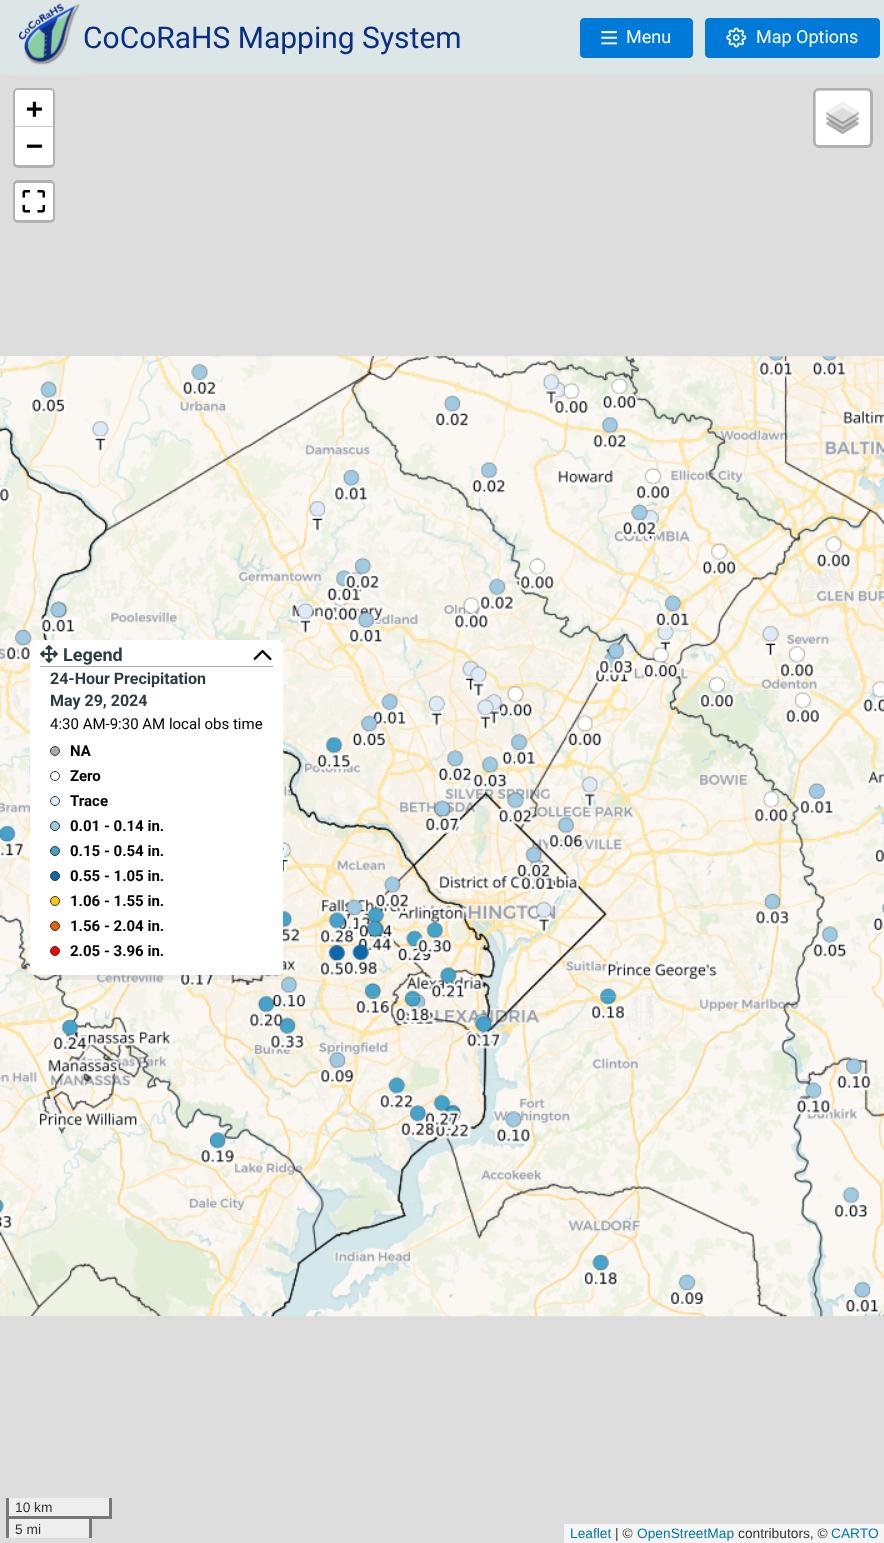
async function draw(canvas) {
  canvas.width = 884;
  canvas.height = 1543;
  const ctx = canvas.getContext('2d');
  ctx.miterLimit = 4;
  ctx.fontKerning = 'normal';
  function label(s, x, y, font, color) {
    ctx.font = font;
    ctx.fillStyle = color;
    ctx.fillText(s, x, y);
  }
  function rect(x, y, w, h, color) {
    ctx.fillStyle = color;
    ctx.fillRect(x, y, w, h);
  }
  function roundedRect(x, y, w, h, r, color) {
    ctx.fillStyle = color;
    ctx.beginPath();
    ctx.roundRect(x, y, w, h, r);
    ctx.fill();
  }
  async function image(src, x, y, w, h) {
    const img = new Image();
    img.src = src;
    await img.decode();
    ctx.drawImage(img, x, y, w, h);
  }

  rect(0, 0, 884, 1543, '#dce6e6');
  rect(0, 75, 884, 1468, '#ddd');
  rect(15, 75, 68, 1, '#dce6e6');
  await image('assets/img1.png', 18, 2, 63, 64);
  label('CoCoRaHS Mapping System', 83, 48, '30px Roboto', '#0c2e82');
  ctx.fillStyle = '#007ad9';
  ctx.beginPath();
  ctx.roundRect(580.5, 18.5, 112, 39, 3.5);
  ctx.fill();
  ctx.strokeStyle = '#007ad9';
  ctx.stroke();
  await image('assets/img2.png', 601, 31, 16, 14);
  label('Menu', 626, 43, '18px Roboto', '#fff');
  ctx.fillStyle = '#007ad9';
  ctx.beginPath();
  ctx.roundRect(705.5, 18.5, 174, 39, 3.5);
  ctx.fill();
  ctx.stroke();
  await image('assets/img3.png', 726, 27, 21, 21);
  label('Map Options', 756, 43, '18px Roboto', '#fff');
  rect(9, 1519, 80, 19, '#eee');
  ctx.beginPath();
  ctx.roundRect(14.5, 89.5, 39, 77, 3.5);
  ctx.strokeStyle = '#b1b1b1';
  ctx.lineWidth = 3;
  ctx.stroke();
  ctx.fillStyle = '#fff';
  ctx.beginPath();
  ctx.roundRect(15, 90, 38, 38, [2.5, 2.5, 0, 0]);
  ctx.fill();
  rect(15, 126, 38, 1, '#ccc');
  label('+', 26, 118, 'bold 28px DejaVu Sans Mono', '#000');
  ctx.fillStyle = '#fff';
  ctx.beginPath();
  ctx.roundRect(15, 128, 38, 37, [0, 0, 2.5, 2.5]);
  ctx.fill();
  label('−', 26, 155, 'bold 28px DejaVu Sans Mono', '#000');
  ctx.beginPath();
  ctx.roundRect(14.5, 181.5, 39, 40, 3.5);
  ctx.stroke();
  roundedRect(15, 183, 38, 37, 2.5, '#fff');
  await image('assets/img4.png', 22, 190, 23, 23);
  roundedRect(815, 90, 55, 55, 4, '#fff');
  ctx.beginPath();
  ctx.roundRect(814.5, 89.5, 57, 57, 4.5);
  ctx.strokeStyle = '#00000033';
  ctx.stroke();
  await image('assets/img5.png', 826, 102, 33, 32);
  rect(9, 1498, 100, 18, '#eee');
  rect(109, 1498, 3, 21, '#777');
  rect(92, 1516, 19, 3, '#777');
  rect(6, 1498, 3, 21, '#777');
  label('10 km', 15, 1512, '13.75px Liberation Sans', '#333');
  rect(6, 1516, 85, 3, '#777');
  rect(89, 1516, 3, 22, '#777');
  rect(6, 1516, 3, 22, '#777');
  label('5 mi', 15, 1534, '13.75px Liberation Sans', '#333');
  rect(564, 1524, 320, 19, '#f5f5f5');
  label('Leaflet', 570, 1538, '13.75px Liberation Sans', '#0078a8');
  label('| ©', 615, 1538, '13.75px Liberation Sans', '#333');
  label('OpenStreetMap', 637, 1538, '13.75px Liberation Sans', '#0078a8');
  label('contributors, ©', 738, 1538, '13.75px Liberation Sans', '#333');
  label('CARTO', 831, 1538, '13.75px Liberation Sans', '#0078a8');
  await image('assets/img6.png', 0, 356, 210, 320);
  await image('assets/img11.png', 210, 676, 320, 321);
  await image('assets/img7.png', 210, 356, 320, 321);
  await image('assets/img12.png', 530, 676, 320, 321);
  await image('assets/img8.png', 530, 356, 320, 321);
  await image('assets/img9.png', 850, 356, 34, 320);
  await image('assets/img10.png', 0, 676, 210, 320);
  await image('assets/img13.png', 850, 676, 34, 320);
  await image('assets/img14.png', 0, 996, 210, 320);
  await image('assets/img15.png', 210, 996, 320, 321);
  await image('assets/img16.png', 530, 996, 320, 321);
  await image('assets/img17.png', 850, 996, 34, 320);
  await image('assets/img18.png', 0, 363, 210, 300);
  await image('assets/img23.png', 210, 676, 320, 321);
  await image('assets/img19.png', 210, 356, 320, 321);
  await image('assets/img24.png', 530, 676, 318, 321);
  await image('assets/img20.png', 530, 356, 320, 321);
  await image('assets/img21.png', 850, 408, 34, 158);
  await image('assets/img22.png', 0, 825, 210, 171);
  await image('assets/img25.png', 861, 681, 23, 252);
  await image('assets/img26.png', 0, 996, 210, 320);
  await image('assets/img27.png', 210, 996, 320, 321);
  await image('assets/img28.png', 530, 996, 320, 321);
  await image('assets/img29.png', 850, 1057, 34, 259);
  ctx.save();
  ctx.beginPath();
  ctx.rect(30, 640, 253, 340);
  ctx.clip();
  ctx.fillStyle = '#0000001f';
  ctx.filter = 'blur(10px)';
  ctx.beginPath();
  ctx.roundRect(30, 640, 253, 335, 5);
  ctx.fill();
  ctx.filter = 'none';
  ctx.restore();
  roundedRect(30, 640, 253, 335, 5, '#fff');
  rect(40, 666, 233, 1, '#a9a9a9');
  await image('assets/img30.png', 40, 645, 18, 18);
  label('Legend', 63, 661, 'bold 18px Roboto', '#2d3c43');
  await image('assets/img31.png', 253, 650, 19, 11);
  label('24-Hour Precipitation', 50, 684, 'bold 16px Roboto', '#2d3c43');
  label('May 29, 2024', 50, 706, 'bold 16px Roboto', '#2d3c43');
  label('4:30 AM-9:30 AM local obs time', 50, 729, '15px Roboto', '#000');
  ctx.fillStyle = '#ababab';
  ctx.beginPath();
  ctx.arc(55, 751, 4.5, 0, 2 * Math.PI);
  ctx.fill();
  ctx.strokeStyle = '#333';
  ctx.lineWidth = 1;
  ctx.stroke();
  label('NA', 70, 756, 'bold 15px Roboto', '#000');
  ctx.beginPath();
  ctx.arc(55, 776, 4.5, 0, 2 * Math.PI);
  ctx.stroke();
  label('Zero', 70, 781, 'bold 15px Roboto', '#000');
  ctx.fillStyle = '#deebf7';
  ctx.beginPath();
  ctx.arc(55, 801, 4.5, 0, 2 * Math.PI);
  ctx.fill();
  ctx.stroke();
  label('Trace', 70, 806, 'bold 15px Roboto', '#000');
  ctx.fillStyle = '#9ecae1';
  ctx.beginPath();
  ctx.arc(55, 826, 4.5, 0, 2 * Math.PI);
  ctx.fill();
  ctx.stroke();
  label('0.01 - 0.14 in.', 70, 831, 'bold 15px Roboto', '#000');
  ctx.fillStyle = '#43a2ca';
  ctx.beginPath();
  ctx.arc(55, 851, 4.5, 0, 2 * Math.PI);
  ctx.fill();
  ctx.stroke();
  label('0.15 - 0.54 in.', 70, 856, 'bold 15px Roboto', '#000');
  ctx.fillStyle = '#0868ac';
  ctx.beginPath();
  ctx.arc(55, 876, 4.5, 0, 2 * Math.PI);
  ctx.fill();
  ctx.stroke();
  label('0.55 - 1.05 in.', 70, 881, 'bold 15px Roboto', '#000');
  ctx.fillStyle = '#ffc800';
  ctx.beginPath();
  ctx.arc(55, 901, 4.5, 0, 2 * Math.PI);
  ctx.fill();
  ctx.stroke();
  label('1.06 - 1.55 in.', 70, 906, 'bold 15px Roboto', '#000');
  ctx.fillStyle = '#e36600';
  ctx.beginPath();
  ctx.arc(55, 926, 4.5, 0, 2 * Math.PI);
  ctx.fill();
  ctx.stroke();
  label('1.56 - 2.04 in.', 70, 931, 'bold 15px Roboto', '#000');
  ctx.fillStyle = '#f00';
  ctx.beginPath();
  ctx.arc(55, 951, 4.5, 0, 2 * Math.PI);
  ctx.fill();
  ctx.stroke();
  label('2.05 - 3.96 in.', 70, 956, 'bold 15px Roboto', '#000');
}

draw(document.querySelector('canvas'));
